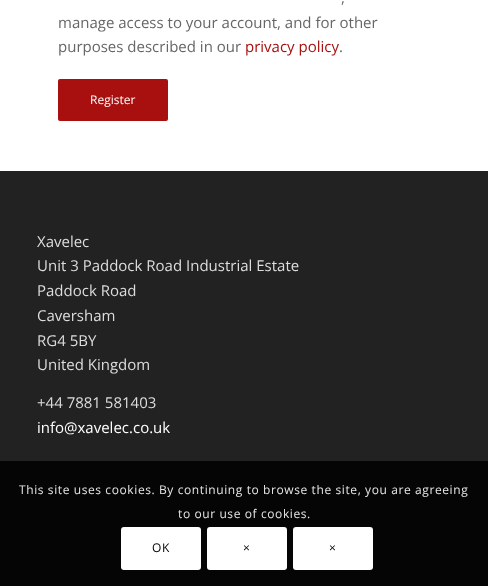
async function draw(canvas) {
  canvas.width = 488;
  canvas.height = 586;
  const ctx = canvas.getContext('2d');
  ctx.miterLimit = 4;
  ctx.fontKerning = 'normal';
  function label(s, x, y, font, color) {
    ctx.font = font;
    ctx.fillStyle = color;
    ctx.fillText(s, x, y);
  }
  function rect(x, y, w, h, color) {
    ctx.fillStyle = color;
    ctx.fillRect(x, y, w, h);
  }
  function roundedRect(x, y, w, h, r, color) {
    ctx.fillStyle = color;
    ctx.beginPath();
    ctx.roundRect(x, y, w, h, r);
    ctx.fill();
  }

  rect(0, 0, 488, 586, '#fff');
  label(',', 341, 3, '15px Open Sans', '#666');
  label('manage access to your account, and for other', 58, 28, '15px Open Sans', '#666');
  label('purposes described in our', 58, 52, '15px Open Sans', '#666');
  label('privacy policy', 245, 52, '15px Open Sans', '#a81010');
  label('.', 339, 52, '15px Open Sans', '#666');
  roundedRect(58, 79, 110, 42, 2, '#a81010');
  label('Register', 90, 104, '12px Open Sans', '#fff');
  rect(0, 171, 488, 290, '#222');
  label('Xavelec', 37, 247, '15px Open Sans', '#ddd');
  label('Unit 3 Paddock Road Industrial Estate', 37, 271, '15px Open Sans', '#ddd');
  label('Paddock Road', 37, 296, '15px Open Sans', '#ddd');
  label('Caversham', 37, 321, '15px Open Sans', '#ddd');
  label('RG4 5BY', 37, 346, '15px Open Sans', '#ddd');
  label('United Kingdom', 37, 370, '15px Open Sans', '#ddd');
  label('+44 7881 581403', 37, 408, '15px Open Sans', '#ddd');
  label('info@xavelec.co.uk', 37, 433, '15px Open Sans', '#fff');
  rect(0, 461, 488, 125, '#050505');
  ctx.letterSpacing = '0.6px';
  label('This site uses cookies. By continuing to browse the site, you are agreeing', 19, 494, '12px Open Sans', '#e6e6e6');
  label('to our use of cookies.', 178, 518, '12px Open Sans', '#e6e6e6');
  roundedRect(121, 527, 80, 43, 3, '#fff');
  label('OK', 152, 552, '12px Open Sans', '#000');
  roundedRect(207, 527, 80, 43, 3, '#fff');
  label('×', 243, 552, '12px Open Sans', '#000');
  roundedRect(293, 527, 80, 43, 3, '#fff');
  label('×', 329, 552, '12px Open Sans', '#000');
}

draw(document.querySelector('canvas'));
